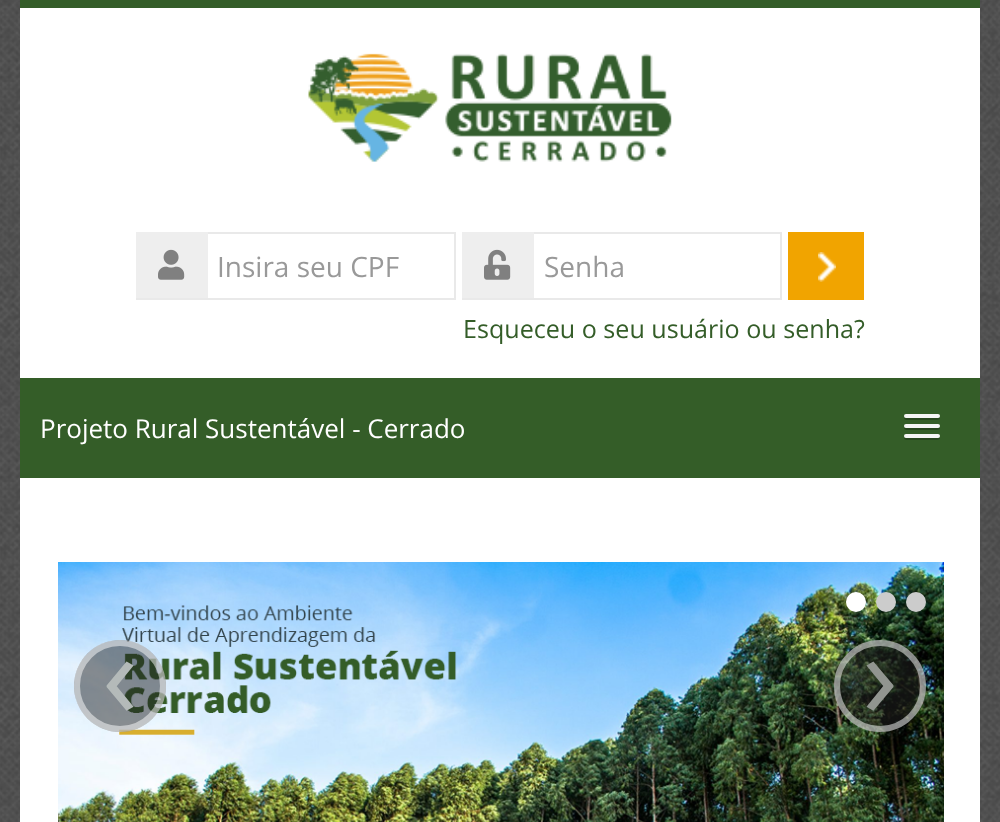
async function draw(canvas) {
  canvas.width = 1000;
  canvas.height = 822;
  const ctx = canvas.getContext('2d');
  ctx.miterLimit = 4;
  ctx.fontKerning = 'normal';
  function label(s, x, y, font, color) {
    ctx.font = font;
    ctx.fillStyle = color;
    ctx.fillText(s, x, y);
  }
  function rect(x, y, w, h, color) {
    ctx.fillStyle = color;
    ctx.fillRect(x, y, w, h);
  }
  function roundedRect(x, y, w, h, r, color) {
    ctx.fillStyle = color;
    ctx.beginPath();
    ctx.roundRect(x, y, w, h, r);
    ctx.fill();
  }
  async function image(src, x, y, w, h) {
    const img = new Image();
    img.src = src;
    await img.decode();
    ctx.drawImage(img, x, y, w, h);
  }
  let path;

  rect(0, 0, 1000, 822, '#fff');
  await image('assets/img1.png', 0, 0, 1000, 822);
  rect(20, 0, 960, 8, '#345d28');
  rect(20, 8, 960, 370, '#fff');
  await image('assets/img2.png', 308, 53, 364, 109);
  ctx.strokeStyle = '#e9e9e9';
  ctx.lineWidth = 2;
  ctx.strokeRect(137, 233, 318, 66);
  rect(136, 232, 72, 66, '#eee');
  await image('assets/img3.png', 158, 249, 27, 31);
  label('Insira seu CPF', 217, 277, '28px Open Sans', '#999');
  ctx.strokeRect(463, 233, 318, 66);
  rect(462, 232, 72, 66, '#eee');
  await image('assets/img4.png', 484, 249, 27, 31);
  label('Senha', 544, 277, '28px Open Sans', '#999');
  rect(788, 232, 76, 68, '#f1a400');
  await image('assets/img5.png', 818, 252, 18, 30);
  label('Esqueceu o seu usuário ou senha?', 463, 338, '25.1px Open Sans', '#345d28');
  rect(20, 378, 960, 100, '#345d28');
  label('Projeto Rural Sustentável - Cerrado', 40, 438, '26px Open Sans', '#fff');
  ctx.fillStyle = '#27461e';
  path = new Path2D('M904.5 417C902 421 911 420 911.5 420H932.5C933 420 942 421 939.5 417C939.5 417.5 938.5 418 938 418H906C905.5 418 904.5 417.5 904.5 417Z');
  ctx.fill(path);
  roundedRect(904, 414, 36, 4, 2, '#f5f5f5');
  ctx.fillStyle = '#27461e';
  path = new Path2D('M904.5 427C902 431 911 430 911.5 430H932.5C933 430 942 431 939.5 427C939.5 427.5 938.5 428 938 428H906C905.5 428 904.5 427.5 904.5 427Z');
  ctx.fill(path);
  roundedRect(904, 424, 36, 4, 2, '#f5f5f5');
  ctx.fillStyle = '#27461e';
  path = new Path2D('M904.5 437C902 441 911 440 911.5 440H932.5C933 440 942 441 939.5 437C939.5 437.5 938.5 438 938 438H906C905.5 438 904.5 437.5 904.5 437Z');
  ctx.fill(path);
  roundedRect(904, 434, 36, 4, 2, '#f5f5f5');
  rect(20, 478, 960, 344, '#fff');
  await image('assets/img6.png', 58, 562, 886, 260);
  ctx.beginPath();
  ctx.arc(856, 602, 10, 0, 2 * Math.PI);
  ctx.fill();
  ctx.fillStyle = '#ccc';
  ctx.beginPath();
  ctx.arc(886, 602, 10, 0, 2 * Math.PI);
  ctx.fill();
  ctx.beginPath();
  ctx.arc(916, 602, 10, 0, 2 * Math.PI);
  ctx.fill();
  ctx.fillStyle = '#22222280';
  ctx.beginPath();
  ctx.arc(120, 686, 46, 0, 2 * Math.PI);
  ctx.fill();
  ctx.beginPath();
  ctx.arc(120, 686, 43, 0, 2 * Math.PI);
  ctx.strokeStyle = '#ffffff80';
  ctx.lineWidth = 6;
  ctx.stroke();
  label('‹', 102, 718, '120px Open Sans', '#b4bab9');
  ctx.fillStyle = '#22222280';
  ctx.beginPath();
  ctx.arc(880, 686, 46, 0, 2 * Math.PI);
  ctx.fill();
  ctx.beginPath();
  ctx.arc(880, 686, 43, 0, 2 * Math.PI);
  ctx.stroke();
  label('›', 862, 718, '120px Open Sans', '#919590');
}

draw(document.querySelector('canvas'));
